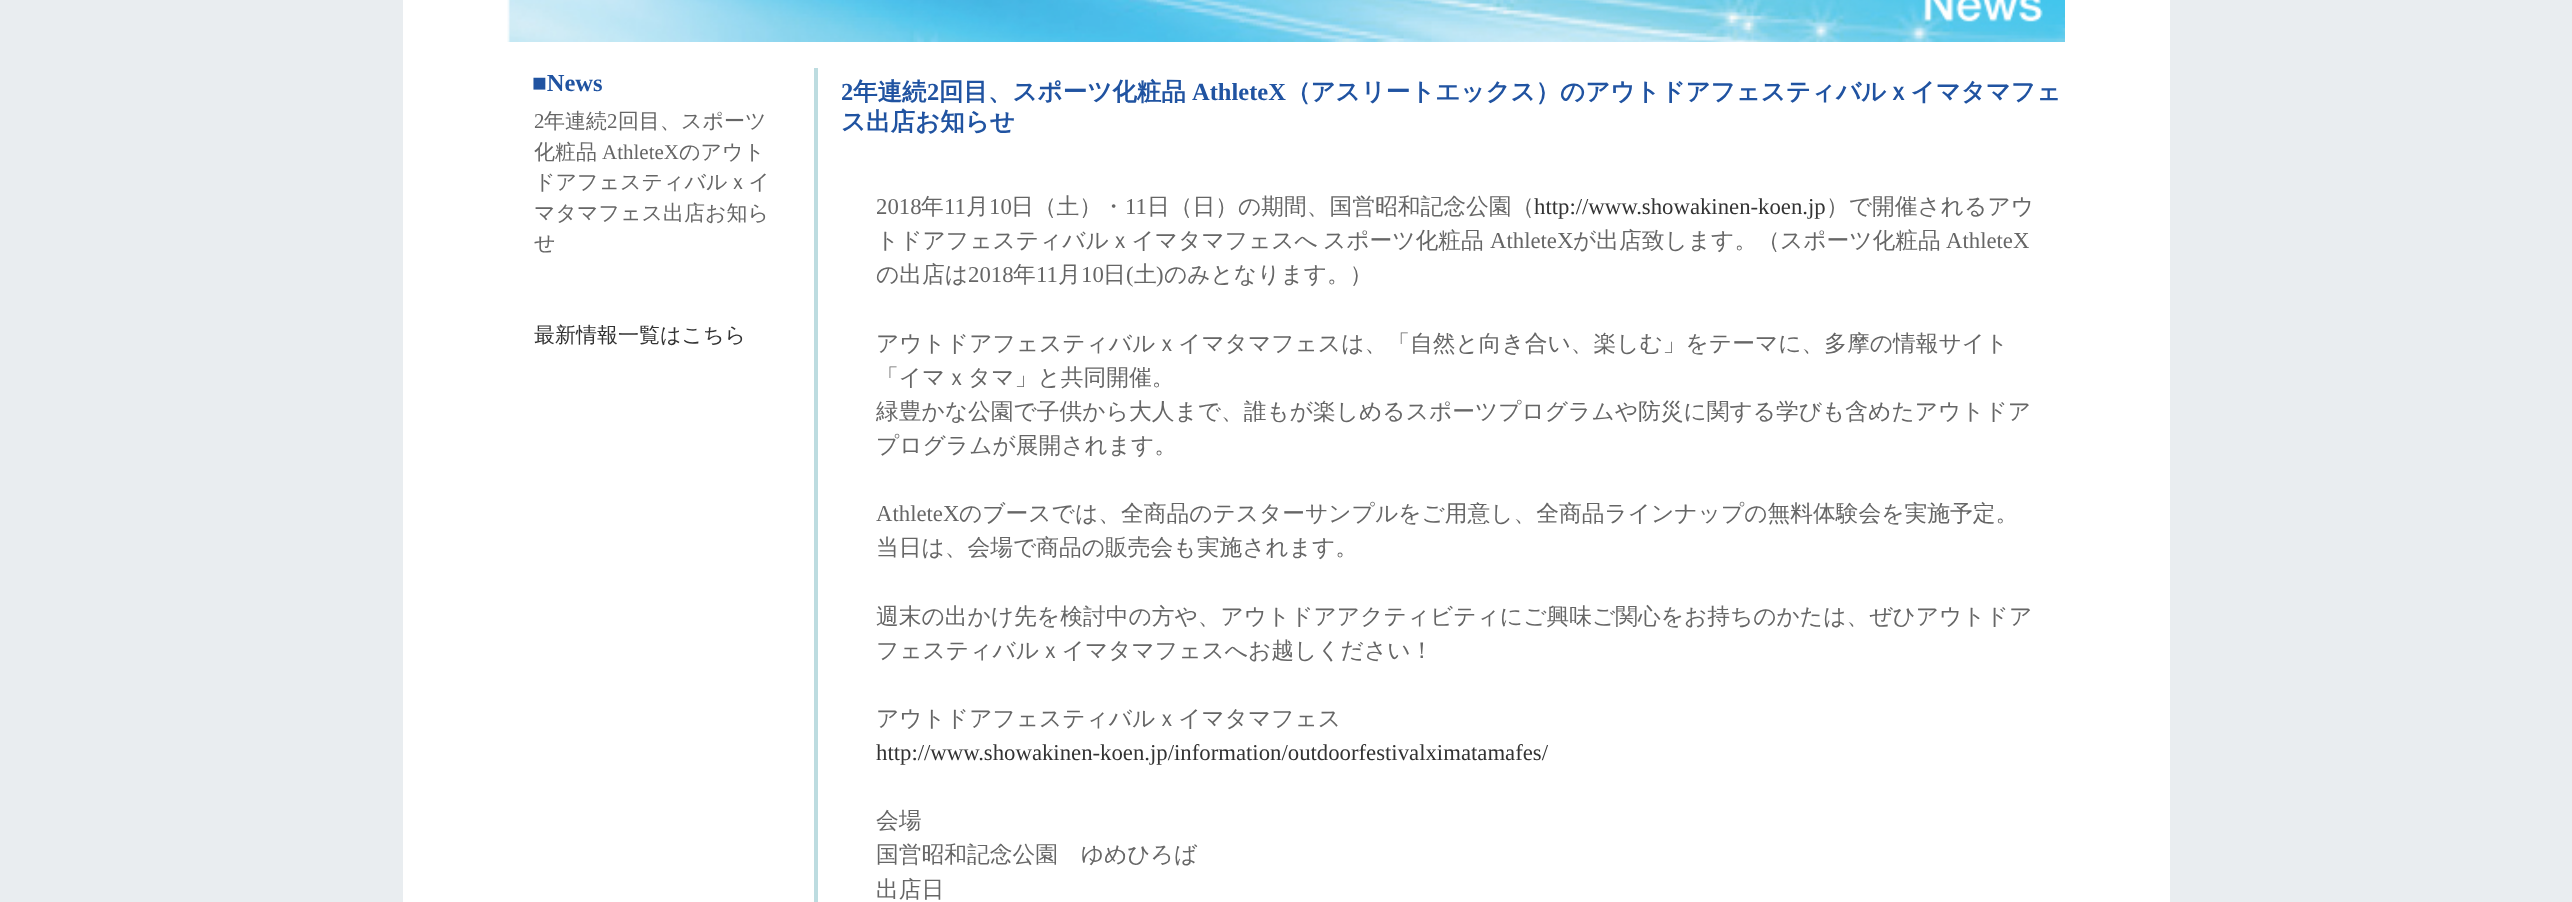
async function draw(canvas) {
  canvas.width = 2572;
  canvas.height = 902;
  const ctx = canvas.getContext('2d');
  ctx.miterLimit = 4;
  ctx.fontKerning = 'normal';
  function label(s, x, y, font, color) {
    ctx.font = font;
    ctx.fillStyle = color;
    ctx.fillText(s, x, y);
  }
  function rect(x, y, w, h, color) {
    ctx.fillStyle = color;
    ctx.fillRect(x, y, w, h);
  }
  async function image(src, x, y, w, h) {
    const img = new Image();
    img.src = src;
    await img.decode();
    ctx.drawImage(img, x, y, w, h);
  }

  rect(0, 0, 2572, 902, '#e9edf0');
  rect(403, 0, 1767, 902, '#fff');
  await image('assets/img1.png', 507, 0, 1558, 42);
  label('■News', 532, 91, 'bold 24.5px Liberation Serif', '#2053a1');
  label('2', 534, 128, '21px Liberation Serif', '#666');
  label('年連続', 544, 128, '500 21px WenQuanYi Zen Hei', '#666');
  label('2', 607, 128, '21px Liberation Serif', '#666');
  label('回目、スポーツ', 618, 128, '500 21px WenQuanYi Zen Hei', '#666');
  label('化粧品', 534, 159, '500 21px WenQuanYi Zen Hei', '#666');
  label('AthleteX', 602, 159, '21px Liberation Serif', '#666');
  label('のアウト', 679, 159, '500 21px WenQuanYi Zen Hei', '#666');
  label('ドアフェスティバルｘイ', 534, 189, '500 21px WenQuanYi Zen Hei', '#666');
  label('マタマフェス出店お知ら', 534, 220, '500 21px WenQuanYi Zen Hei', '#666');
  label('せ', 534, 250, '500 21px WenQuanYi Zen Hei', '#666');
  label('最新情報一覧はこちら', 534, 342, '500 21px WenQuanYi Zen Hei', '#333');
  rect(814, 68, 4, 834, '#bddce0');
  label('2', 841, 100, 'bold 24.5px Liberation Serif', '#2053a1');
  label('年連続', 853, 100, 'bold 24.5px WenQuanYi Zen Hei', '#2053a1');
  label('2', 927, 100, 'bold 24.5px Liberation Serif', '#2053a1');
  label('回目、スポーツ化粧品', 939, 100, 'bold 24.5px WenQuanYi Zen Hei', '#2053a1');
  label('AthleteX', 1192, 100, 'bold 24.5px Liberation Serif', '#2053a1');
  label('（アスリートエックス）のアウトドアフェスティバルｘイマタマフェ', 1286, 100, 'bold 24.5px WenQuanYi Zen Hei', '#2053a1');
  label('ス出店お知らせ', 841, 130, 'bold 24.5px WenQuanYi Zen Hei', '#2053a1');
  label('2018', 876, 214, '22.75px Liberation Serif', '#666');
  label('年', 921, 214, '500 22.75px WenQuanYi Zen Hei', '#666');
  label('11', 944, 214, '22.75px Liberation Serif', '#666');
  label('月', 966, 214, '500 22.75px WenQuanYi Zen Hei', '#666');
  label('10', 989, 214, '22.75px Liberation Serif', '#666');
  label('日（土）・', 1011, 214, '500 22.75px WenQuanYi Zen Hei', '#666');
  label('11', 1125, 214, '22.75px Liberation Serif', '#666');
  label('日（日）の期間、国営昭和記念公園（', 1147, 214, '500 22.75px WenQuanYi Zen Hei', '#666');
  label('http://www.showakinen-koen.jp', 1534, 214, '22.75px Liberation Serif', '#333');
  label('）で開催されるアウ', 1826, 214, '500 22.75px WenQuanYi Zen Hei', '#666');
  label('トドアフェスティバルｘイマタマフェスへ', 876, 248, '500 22.75px WenQuanYi Zen Hei', '#666');
  label('スポーツ化粧品', 1323, 248, '500 22.75px WenQuanYi Zen Hei', '#666');
  label('AthleteX', 1490, 248, '22.75px Liberation Serif', '#666');
  label('が出店致します。（スポーツ化粧品', 1573, 248, '500 22.75px WenQuanYi Zen Hei', '#666');
  label('AthleteX', 1946, 248, '22.75px Liberation Serif', '#666');
  label('の出店は', 876, 282, '500 22.75px WenQuanYi Zen Hei', '#666');
  label('2018', 968, 282, '22.75px Liberation Serif', '#666');
  label('年', 1013, 282, '500 22.75px WenQuanYi Zen Hei', '#666');
  label('11', 1036, 282, '22.75px Liberation Serif', '#666');
  label('月', 1058, 282, '500 22.75px WenQuanYi Zen Hei', '#666');
  label('10', 1081, 282, '22.75px Liberation Serif', '#666');
  label('日', 1103, 282, '500 22.75px WenQuanYi Zen Hei', '#666');
  label('(', 1126, 282, '22.75px Liberation Serif', '#666');
  label('土', 1134, 282, '500 22.75px WenQuanYi Zen Hei', '#666');
  label(')', 1156, 282, '22.75px Liberation Serif', '#666');
  label('のみとなります。）', 1164, 282, '500 22.75px WenQuanYi Zen Hei', '#666');
  label('アウトドアフェスティバルｘイマタマフェスは、「自然と向き合い、楽しむ」をテーマに、多摩の情報サイト', 876, 351, '500 22.75px WenQuanYi Zen Hei', '#666');
  label('「イマｘタマ」と共同開催。', 876, 385, '500 22.75px WenQuanYi Zen Hei', '#666');
  label('緑豊かな公園で子供から大人まで、誰もが楽しめるスポーツプログラムや防災に関する学びも含めたアウトドア', 876, 419, '500 22.75px WenQuanYi Zen Hei', '#666');
  label('プログラムが展開されます。', 876, 453, '500 22.75px WenQuanYi Zen Hei', '#666');
  label('AthleteX', 876, 521, '22.75px Liberation Serif', '#666');
  label('のブースでは、全商品のテスターサンプルをご用意し、全商品ラインナップの無料体験会を実施予定。', 959, 521, '500 22.75px WenQuanYi Zen Hei', '#666');
  label('当日は、会場で商品の販売会も実施されます。', 876, 555, '500 22.75px WenQuanYi Zen Hei', '#666');
  label('週末の出かけ先を検討中の方や、アウトドアアクティビティにご興味ご関心をお持ちのかたは、ぜひアウトドア', 876, 624, '500 22.75px WenQuanYi Zen Hei', '#666');
  label('フェスティバルｘイマタマフェスへお越しください！', 876, 658, '500 22.75px WenQuanYi Zen Hei', '#666');
  label('アウトドアフェスティバルｘイマタマフェス', 876, 726, '500 22.75px WenQuanYi Zen Hei', '#666');
  label('http://www.showakinen-koen.jp/information/outdoorfestivalximatamafes/', 876, 760, '22.75px Liberation Serif', '#333');
  label('会場', 876, 828, '500 22.75px WenQuanYi Zen Hei', '#666');
  label('国営昭和記念公園　ゆめひろば', 876, 862, '500 22.75px WenQuanYi Zen Hei', '#666');
  label('出店日', 876, 897, '500 22.75px WenQuanYi Zen Hei', '#666');
}

draw(document.querySelector('canvas'));
